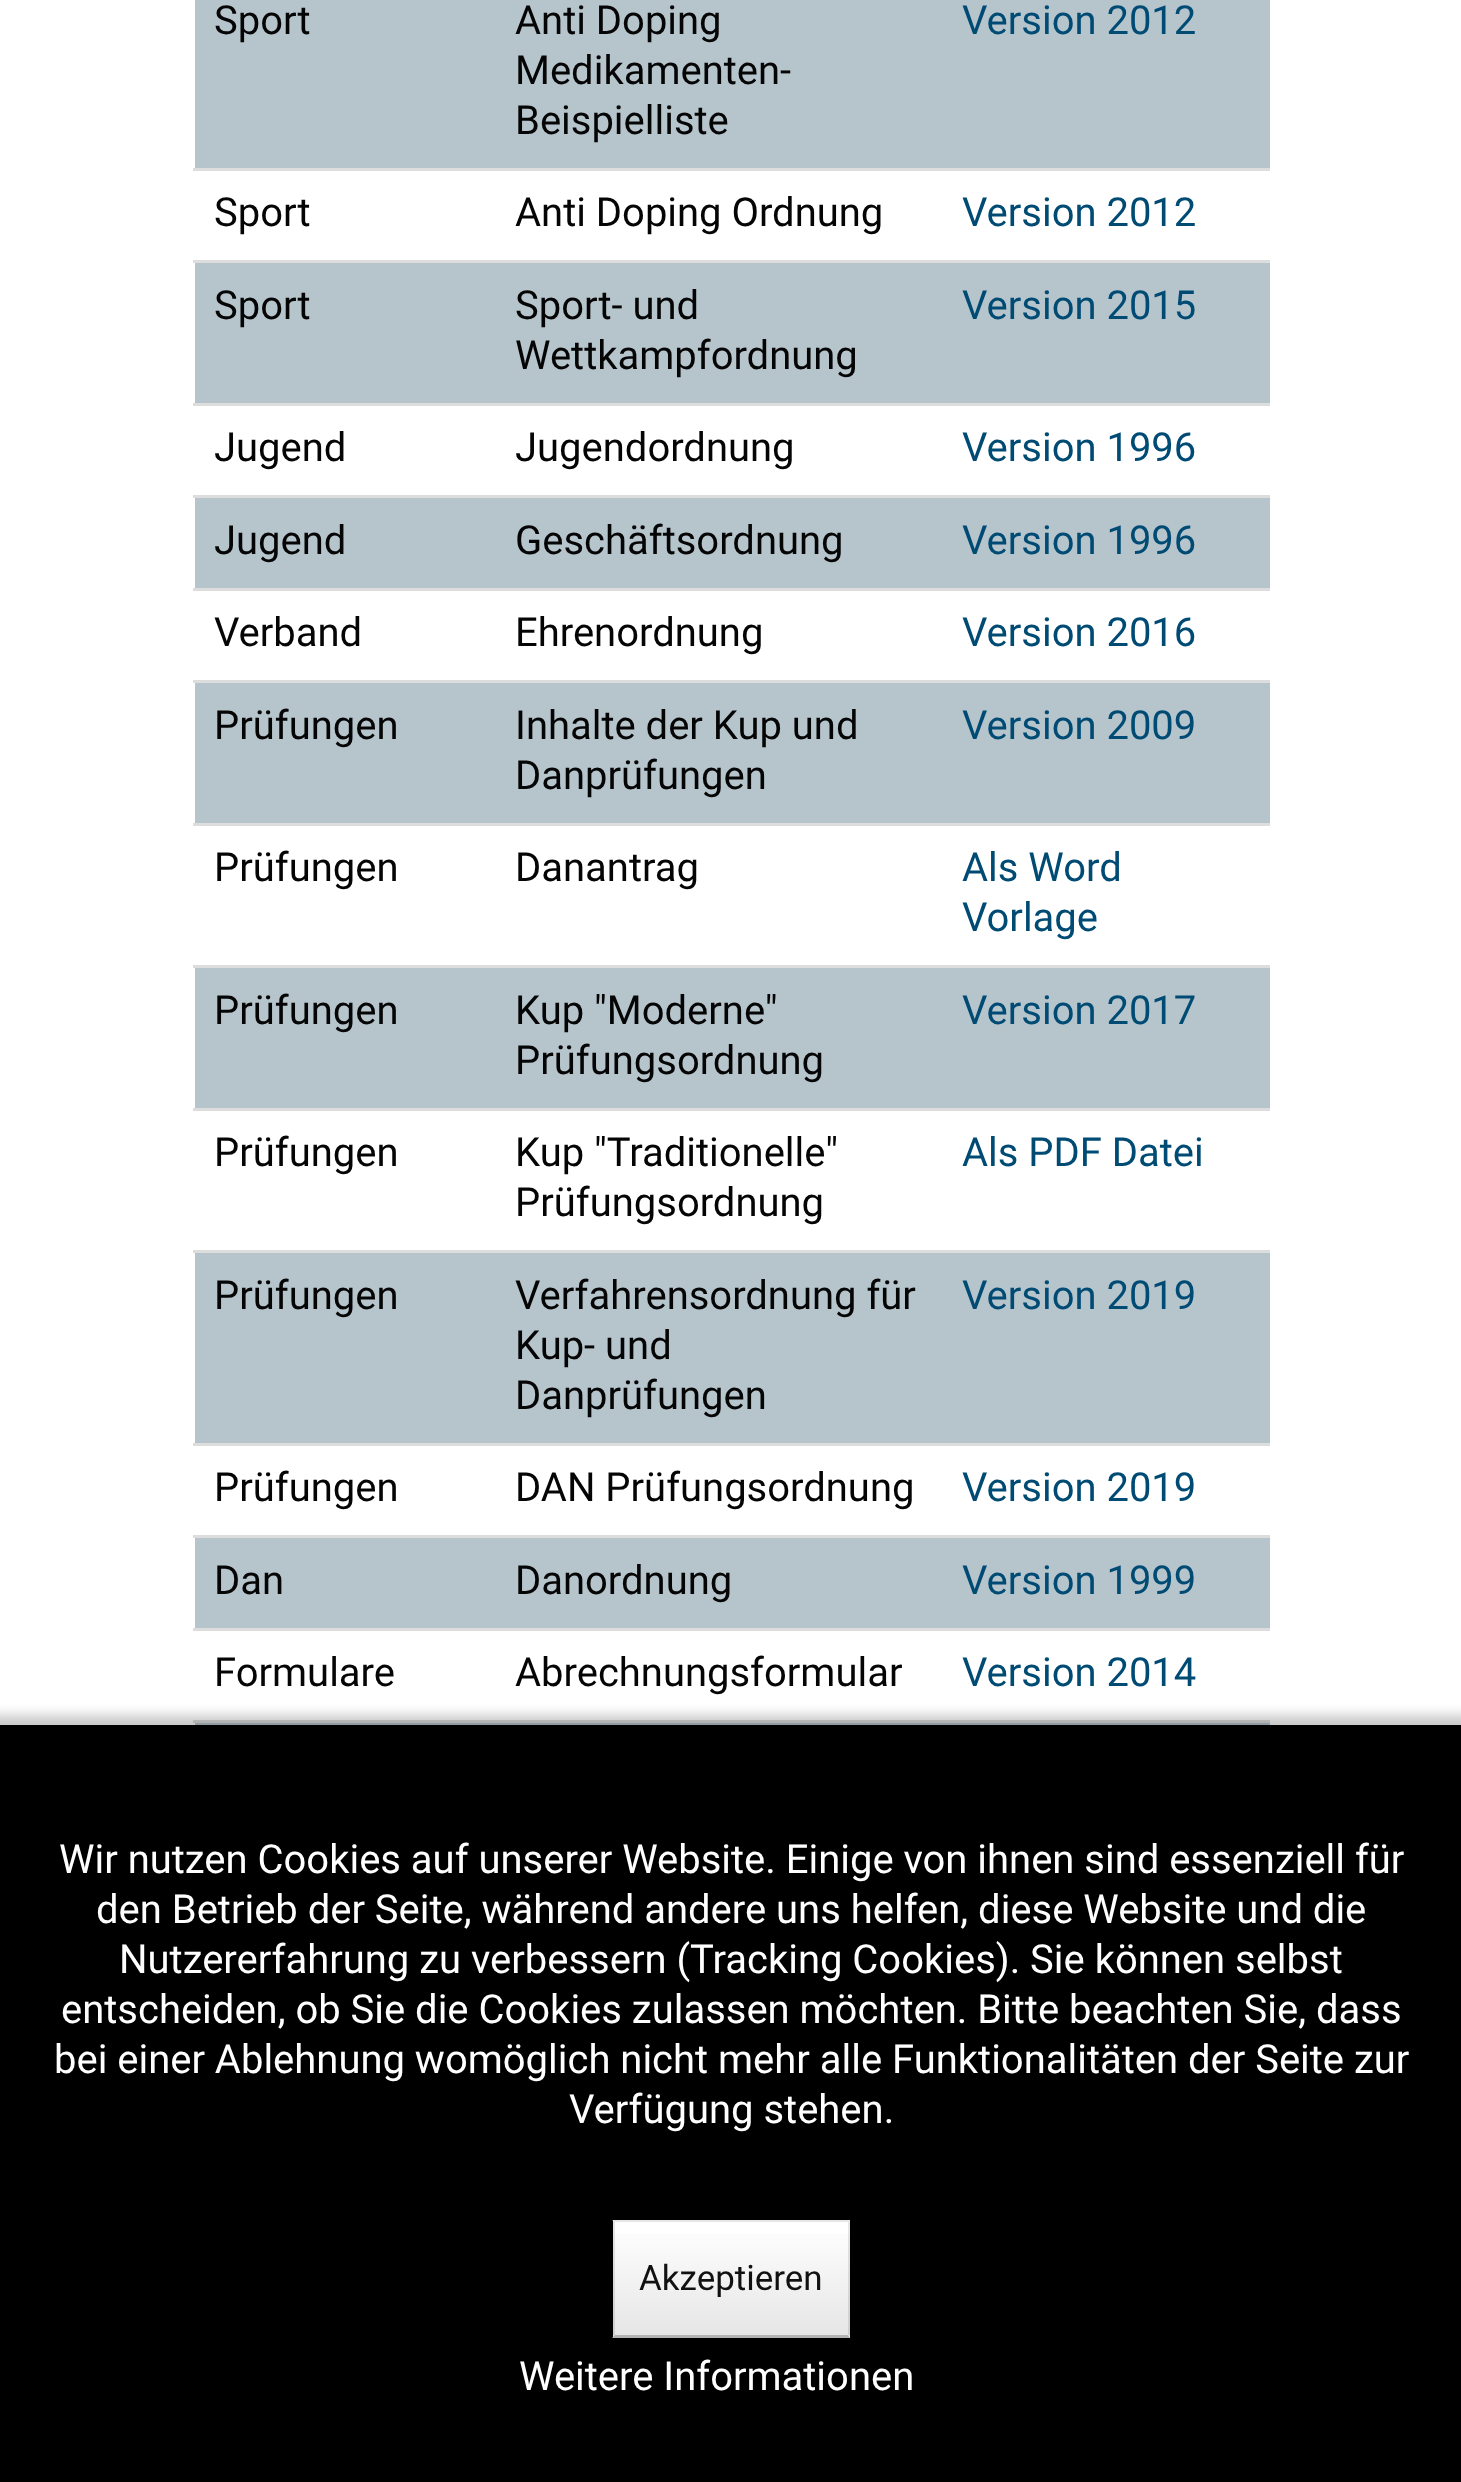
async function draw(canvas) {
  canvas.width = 1461;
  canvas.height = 2482;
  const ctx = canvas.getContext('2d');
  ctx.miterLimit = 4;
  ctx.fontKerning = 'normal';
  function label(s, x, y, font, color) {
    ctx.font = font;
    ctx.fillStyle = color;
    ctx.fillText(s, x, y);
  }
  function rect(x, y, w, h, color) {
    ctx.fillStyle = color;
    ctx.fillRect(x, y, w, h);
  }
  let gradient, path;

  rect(0, 0, 1461, 2482, '#fff');
  rect(195, 0, 1075, 168, '#b6c4cc');
  label('Sport', 214, 34, '40px Roboto', '#050505');
  label('Anti Doping', 515, 34, '40px Roboto', '#050505');
  label('Medikamenten-', 515, 84, '40px Roboto', '#050505');
  label('Beispielliste', 515, 134, '40px Roboto', '#050505');
  label('Version 2012', 962, 34, '40px Roboto', '#004b74');
  label('Sport', 214, 226, '40px Roboto', '#050505');
  label('Anti Doping Ordnung', 515, 226, '40px Roboto', '#050505');
  rect(193, 168, 1077, 3, '#ddd');
  label('Version 2012', 962, 226, '40px Roboto', '#004b74');
  rect(195, 263, 1075, 140, '#b6c4cc');
  label('Sport', 214, 319, '40px Roboto', '#050505');
  label('Sport- und', 515, 319, '40px Roboto', '#050505');
  label('Wettkampfordnung', 515, 369, '40px Roboto', '#050505');
  rect(193, 260, 1077, 3, '#ddd');
  label('Version 2015', 962, 319, '40px Roboto', '#004b74');
  label('Jugend', 214, 461, '40px Roboto', '#050505');
  label('Jugendordnung', 515, 461, '40px Roboto', '#050505');
  rect(193, 403, 1077, 3, '#ddd');
  label('Version 1996', 962, 461, '40px Roboto', '#004b74');
  rect(195, 498, 1075, 90, '#b6c4cc');
  label('Jugend', 214, 554, '40px Roboto', '#050505');
  label('Geschäftsordnung', 515, 554, '40px Roboto', '#050505');
  rect(193, 495, 1077, 3, '#ddd');
  label('Version 1996', 962, 554, '40px Roboto', '#004b74');
  label('Verband', 214, 646, '40px Roboto', '#050505');
  label('Ehrenordnung', 515, 646, '40px Roboto', '#050505');
  rect(193, 588, 1077, 3, '#ddd');
  label('Version 2016', 962, 646, '40px Roboto', '#004b74');
  rect(195, 683, 1075, 140, '#b6c4cc');
  label('Prüfungen', 214, 739, '40px Roboto', '#050505');
  label('Inhalte der Kup und', 515, 739, '40px Roboto', '#050505');
  label('Danprüfungen', 515, 789, '40px Roboto', '#050505');
  rect(193, 680, 1077, 3, '#ddd');
  label('Version 2009', 962, 739, '40px Roboto', '#004b74');
  label('Prüfungen', 214, 881, '40px Roboto', '#050505');
  label('Danantrag', 515, 881, '40px Roboto', '#050505');
  rect(193, 823, 1077, 3, '#ddd');
  label('Als Word', 962, 881, '40px Roboto', '#004b74');
  label('Vorlage', 962, 931, '40px Roboto', '#004b74');
  rect(195, 968, 1075, 140, '#b6c4cc');
  label('Prüfungen', 214, 1024, '40px Roboto', '#050505');
  label('Kup "Moderne"', 515, 1024, '40px Roboto', '#050505');
  label('Prüfungsordnung', 515, 1074, '40px Roboto', '#050505');
  rect(193, 965, 1077, 3, '#ddd');
  label('Version 2017', 962, 1024, '40px Roboto', '#004b74');
  label('Prüfungen', 214, 1166, '40px Roboto', '#050505');
  label('Kup "Traditionelle"', 515, 1166, '40px Roboto', '#050505');
  label('Prüfungsordnung', 515, 1216, '40px Roboto', '#050505');
  rect(193, 1108, 1077, 3, '#ddd');
  label('Als PDF Datei', 962, 1166, '40px Roboto', '#004b74');
  rect(195, 1253, 1075, 190, '#b6c4cc');
  label('Prüfungen', 214, 1309, '40px Roboto', '#050505');
  label('Verfahrensordnung für', 515, 1309, '40px Roboto', '#050505');
  label('Kup- und', 515, 1359, '40px Roboto', '#050505');
  label('Danprüfungen', 515, 1409, '40px Roboto', '#050505');
  rect(193, 1250, 1077, 3, '#ddd');
  label('Version 2019', 962, 1309, '40px Roboto', '#004b74');
  label('Prüfungen', 214, 1501, '40px Roboto', '#050505');
  label('DAN Prüfungsordnung', 515, 1501, '40px Roboto', '#050505');
  rect(193, 1443, 1077, 3, '#ddd');
  label('Version 2019', 962, 1501, '40px Roboto', '#004b74');
  rect(195, 1538, 1075, 90, '#b6c4cc');
  label('Dan', 214, 1594, '40px Roboto', '#050505');
  label('Danordnung', 515, 1594, '40px Roboto', '#050505');
  rect(193, 1535, 1077, 3, '#ddd');
  label('Version 1999', 962, 1594, '40px Roboto', '#004b74');
  label('Formulare', 214, 1686, '40px Roboto', '#050505');
  label('Abrechnungsformular', 515, 1686, '40px Roboto', '#050505');
  rect(193, 1628, 1077, 3, '#ddd');
  label('Version 2014', 962, 1686, '40px Roboto', '#004b74');
  rect(195, 1723, 1075, 2, '#b6c4cc');
  rect(193, 1720, 1077, 3, '#ddd');
  ctx.fillStyle = '#00000036';
  ctx.filter = 'blur(6px)';
  ctx.beginPath();
  ctx.rect(-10, 1715, 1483, 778);
  ctx.fill();
  ctx.filter = 'none';
  rect(0, 1725, 1461, 757, '#000');
  label('Wir nutzen Cookies auf unserer Website. Einige von ihnen sind essenziell für', 59, 1873, '40px Roboto', '#fff');
  label('den Betrieb der Seite, während andere uns helfen, diese Website und die', 96, 1923, '40px Roboto', '#fff');
  label('Nutzererfahrung zu verbessern (Tracking Cookies). Sie können selbst', 119, 1973, '40px Roboto', '#fff');
  label('entscheiden, ob Sie die Cookies zulassen möchten. Bitte beachten Sie, dass', 61, 2023, '40px Roboto', '#fff');
  label('bei einer Ablehnung womöglich nicht mehr alle Funktionalitäten der Seite zur', 54, 2073, '40px Roboto', '#fff');
  label('Verfügung stehen.', 569, 2123, '40px Roboto', '#fff');
  rect(613, 2220, 237, 118, '#fff');
  gradient = ctx.createLinearGradient(731, 2223, 731, 2335);
  gradient.addColorStop(0, '#fff');
  gradient.addColorStop(1, '#e6e6e6');
  ctx.fillStyle = gradient;
  ctx.fillRect(613, 2234, 237, 101);
  ctx.fillStyle = '#e6e6e6';
  path = new Path2D('M612 2220H850L848 2222H615Z');
  ctx.fill(path);
  ctx.fillStyle = '#0000001a';
  path = new Path2D('M850 2220V2338L848 2335V2222Z');
  ctx.fill(path);
  ctx.fillStyle = '#b3b3b3';
  path = new Path2D('M850 2338H612L615 2335H848Z');
  ctx.fill(path);
  ctx.fillStyle = '#0000001a';
  path = new Path2D('M612 2338V2220L615 2222V2335Z');
  ctx.fill(path);
  label('Akzeptieren', 639, 2290, '35px Roboto', '#111');
  label('Weitere Informationen', 519, 2390, '40px Roboto', '#fff');
}

draw(document.querySelector('canvas'));
